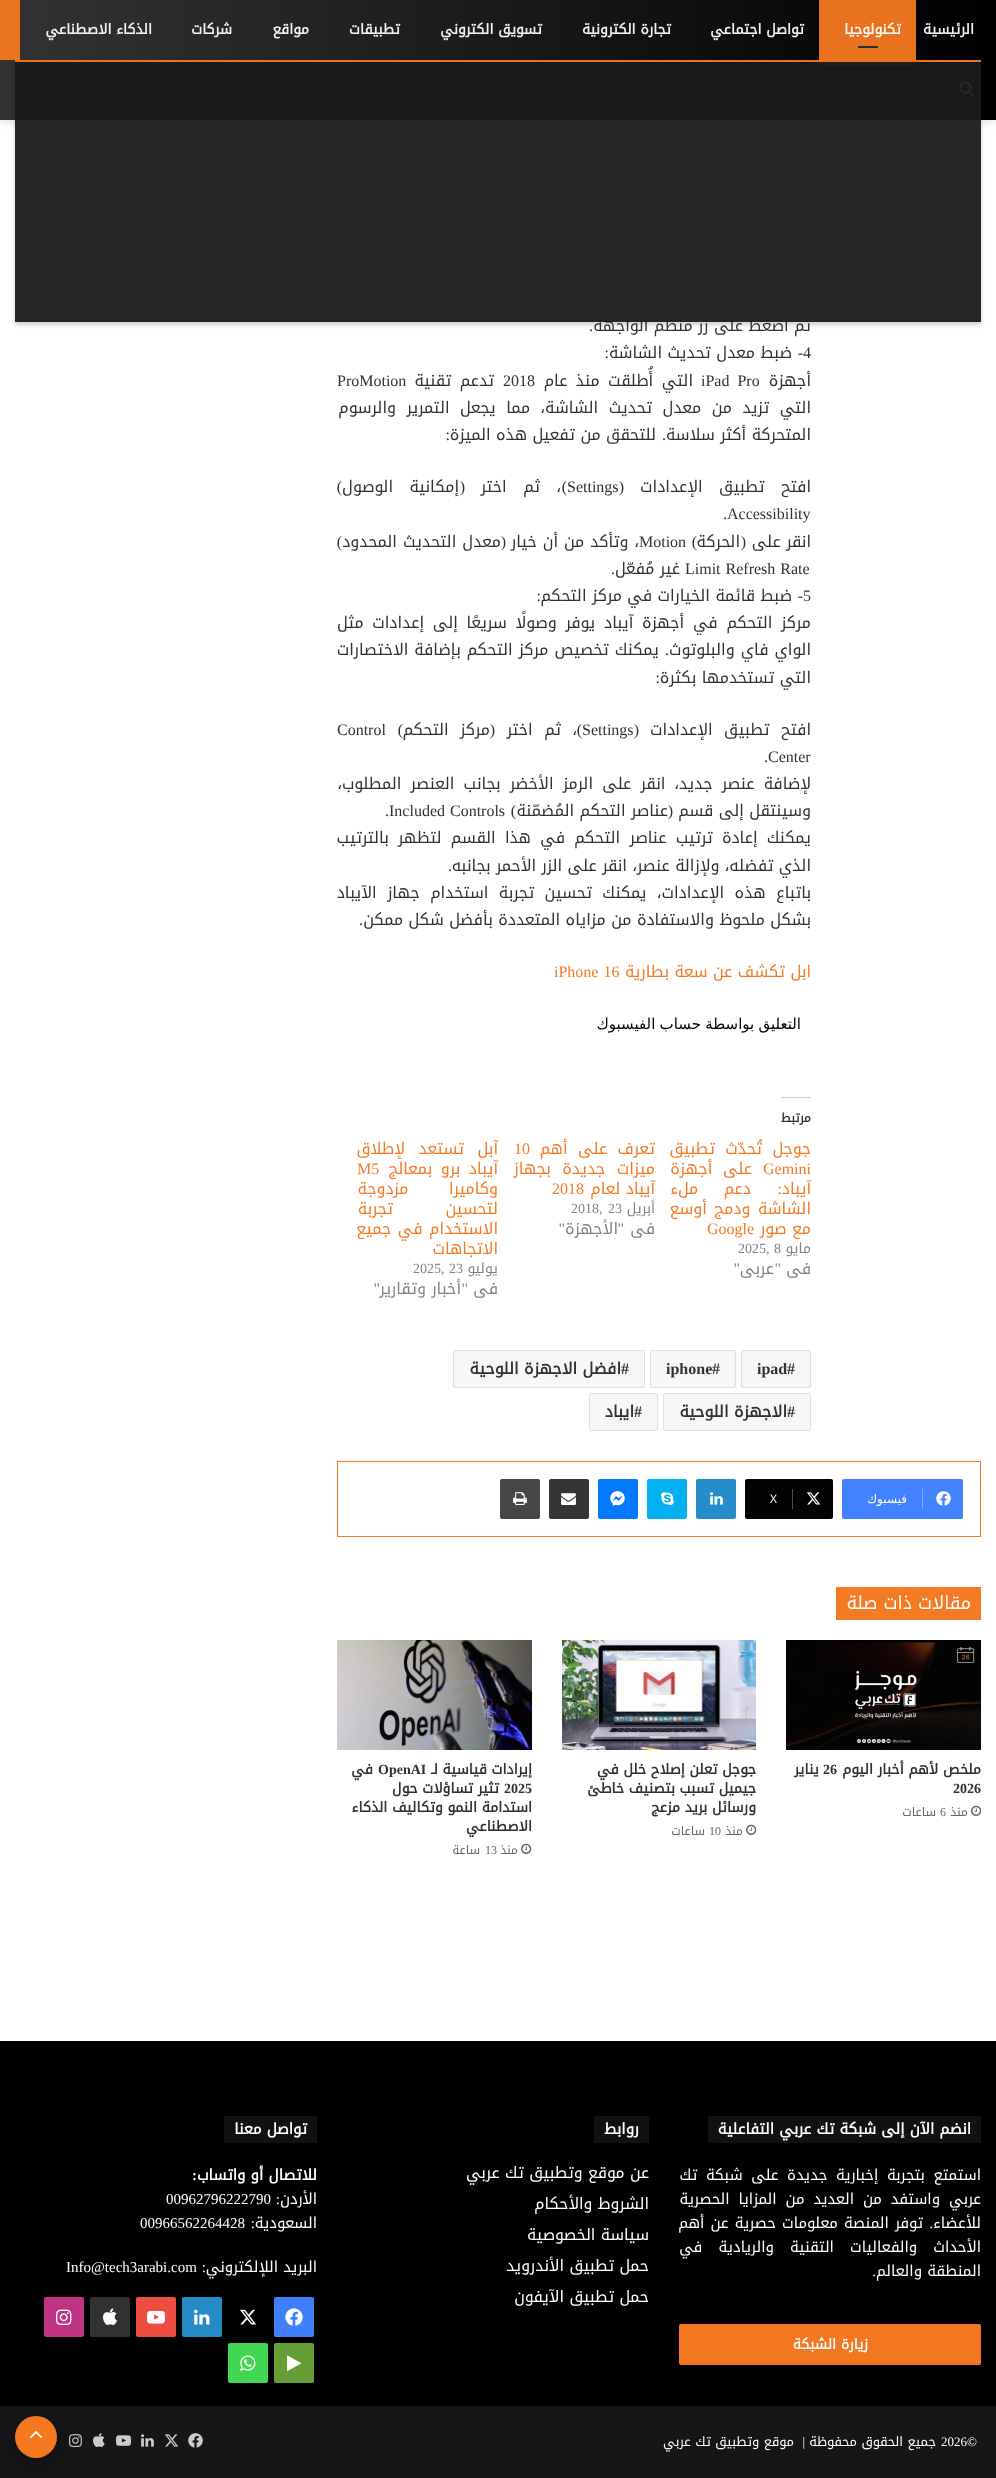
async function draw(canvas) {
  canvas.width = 996;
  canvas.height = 2478;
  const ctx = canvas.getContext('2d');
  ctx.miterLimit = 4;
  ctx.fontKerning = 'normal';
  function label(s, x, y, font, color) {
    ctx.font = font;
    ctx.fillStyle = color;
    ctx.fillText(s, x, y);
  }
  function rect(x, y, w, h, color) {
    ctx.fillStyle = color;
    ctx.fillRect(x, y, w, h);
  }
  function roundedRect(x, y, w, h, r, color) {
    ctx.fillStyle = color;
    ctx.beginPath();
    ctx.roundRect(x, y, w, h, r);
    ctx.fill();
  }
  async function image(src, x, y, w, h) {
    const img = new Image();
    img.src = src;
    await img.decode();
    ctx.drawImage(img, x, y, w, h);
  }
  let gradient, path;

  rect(0, 0, 996, 2478, '#fff');
  ctx.fillStyle = '#63636333';
  ctx.filter = 'blur(4px)';
  ctx.beginPath();
  ctx.rect(0, 2, 996, 120);
  ctx.fill();
  ctx.filter = 'none';
  gradient = ctx.createLinearGradient(0, 60, 996, 60);
  gradient.addColorStop(0, '#333');
  gradient.addColorStop(1, '#000');
  ctx.fillStyle = gradient;
  ctx.fillRect(0, 0, 996, 120);
  gradient = ctx.createLinearGradient(0, 60, 996, 60);
  gradient.addColorStop(0, '#ea7521');
  gradient.addColorStop(1, '#e8721e');
  ctx.fillStyle = gradient;
  ctx.fillRect(819, 0, 97, 60);
  ctx.fillRect(819, 60, 97, 5);
  await image('assets/img1.png', 959, 81, 15, 16);
  ctx.save();
  path = new Path2D('M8 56H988V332H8ZM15 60H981V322H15Z');
  ctx.clip(path, 'evenodd');
  ctx.fillStyle = '#00000030';
  ctx.filter = 'blur(2px)';
  ctx.beginPath();
  ctx.rect(15, 63, 966, 262);
  ctx.fill();
  ctx.filter = 'none';
  ctx.restore();
  rect(0, 0, 20, 60, '#ea7521');
  ctx.direction = 'rtl';
  label('ثم اضغط على زر منظم الواجهة', 811, 331, '16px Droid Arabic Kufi', '#2e3136');
  rect(15, 60, 966, 262, '#1a1a1af2');
  rect(15, 60, 966, 2, '#f47820f2');
  label('الرئيسية', 974, 34, 'bold 14px Droid Arabic Kufi', '#f2f2f2');
  label('تكنولوجيا', 901, 34, 'bold 14px Droid Arabic Kufi', '#fef8f4');
  rect(858, 46, 20, 2, '#2a2d32');
  label('تواصل اجتماعي', 804, 34, 'bold 14px Droid Arabic Kufi', '#f2f2f2');
  label('تجارة الكترونية', 671, 34, 'bold 14px Droid Arabic Kufi', '#f2f2f2');
  label('تسويق الكتروني', 542, 34, 'bold 14px Droid Arabic Kufi', '#f2f2f2');
  label('تطبيقات', 400, 34, 'bold 14px Droid Arabic Kufi', '#f2f2f2');
  label('مواقع', 309, 34, 'bold 14px Droid Arabic Kufi', '#f2f2f2');
  label('شركات', 232, 34, 'bold 14px Droid Arabic Kufi', '#f2f2f2');
  label('الذكاء الاصطناعي', 152, 34, 'bold 14px Droid Arabic Kufi', '#f2f2f2');
  label('.', 593, 331, '16px Liberation Serif', '#2e3136');
  ctx.direction = 'ltr';
  label('4', 803, 358, '16px Liberation Serif', '#2e3136');
  ctx.direction = 'rtl';
  label('-', 803, 358, '16px Liberation Serif', '#2e3136');
  label('ضبط معدل تحديث الشاشة', 792, 358, '16px Droid Arabic Kufi', '#2e3136');
  label(':', 609, 358, '16px Liberation Serif', '#2e3136');
  label('أجهزة', 811, 386, '16px Droid Arabic Kufi', '#2e3136');
  ctx.wordSpacing = '4px';
  ctx.direction = 'ltr';
  label('iPad Pro', 701, 386, '16px Liberation Serif', '#2e3136');
  ctx.wordSpacing = '3px';
  ctx.direction = 'rtl';
  label('التي أُطلقت منذ عام', 693, 386, '16px Droid Arabic Kufi', '#2e3136');
  ctx.wordSpacing = '0px';
  ctx.direction = 'ltr';
  label('2018', 503, 386, '16px Liberation Serif', '#2e3136');
  ctx.wordSpacing = '3px';
  ctx.direction = 'rtl';
  label('تدعم تقنية', 494, 386, '16px Droid Arabic Kufi', '#2e3136');
  ctx.wordSpacing = '0px';
  ctx.direction = 'ltr';
  label('ProMotion', 337, 386, '16px Liberation Serif', '#2e3136');
  ctx.wordSpacing = '5px';
  ctx.direction = 'rtl';
  label('التي تزيد من معدل تحديث الشاشة، مما يجعل التمرير والرسوم', 811, 413, '16px Droid Arabic Kufi', '#2e3136');
  ctx.wordSpacing = '0px';
  label('المتحركة أكثر سلاسة', 811, 440, '16px Droid Arabic Kufi', '#2e3136');
  label('.', 666, 440, '16px Liberation Serif', '#2e3136');
  label('للتحقق من تفعيل هذه الميزة', 656, 440, '16px Droid Arabic Kufi', '#2e3136');
  label(':', 450, 440, '16px Liberation Serif', '#2e3136');
  ctx.wordSpacing = '11px';
  label('افتح تطبيق الإعدادات', 811, 492, '16px Droid Arabic Kufi', '#2e3136');
  ctx.wordSpacing = '0px';
  label('(', 624, 492, '16px Liberation Serif', '#2e3136');
  ctx.direction = 'ltr';
  label('Settings', 567, 492, '16px Liberation Serif', '#2e3136');
  ctx.direction = 'rtl';
  label(')', 567, 492, '16px Liberation Serif', '#2e3136');
  ctx.wordSpacing = '11px';
  label('، ثم اختر', 561, 492, '16px Droid Arabic Kufi', '#2e3136');
  ctx.wordSpacing = '0px';
  label('(', 465, 492, '16px Liberation Serif', '#2e3136');
  ctx.wordSpacing = '11px';
  label('إمكانية الوصول', 459, 492, '16px Droid Arabic Kufi', '#2e3136');
  ctx.wordSpacing = '0px';
  label(')', 342, 492, '16px Liberation Serif', '#2e3136');
  ctx.direction = 'ltr';
  label('.Accessibility', 723, 519, '16px Liberation Serif', '#2e3136');
  ctx.direction = 'rtl';
  label('انقر على', 811, 547, '16px Droid Arabic Kufi', '#2e3136');
  label('(', 746, 547, '16px Liberation Serif', '#2e3136');
  label('الحركة', 740, 547, '16px Droid Arabic Kufi', '#2e3136');
  label(')', 697, 547, '16px Liberation Serif', '#2e3136');
  ctx.direction = 'ltr';
  label('Motion', 639, 547, '16px Liberation Serif', '#2e3136');
  ctx.wordSpacing = '0.5px';
  ctx.direction = 'rtl';
  label('، وتأكد من أن خيار', 639, 547, '16px Droid Arabic Kufi', '#2e3136');
  ctx.wordSpacing = '0px';
  label('(', 506, 547, '16px Liberation Serif', '#2e3136');
  ctx.wordSpacing = '0.5px';
  label('معدل التحديث المحدود', 501, 547, '16px Droid Arabic Kufi', '#2e3136');
  ctx.wordSpacing = '0px';
  label(')', 342, 547, '16px Liberation Serif', '#2e3136');
  ctx.wordSpacing = '1px';
  ctx.direction = 'ltr';
  label('Limit Refresh Rate', 685, 574, '16px Liberation Serif', '#2e3136');
  ctx.wordSpacing = '0px';
  ctx.direction = 'rtl';
  label('غير مُفعّل', 680, 574, '16px Droid Arabic Kufi', '#2e3136');
  label('.', 615, 574, '16px Liberation Serif', '#2e3136');
  ctx.direction = 'ltr';
  label('5', 803, 601, '16px Liberation Serif', '#2e3136');
  ctx.direction = 'rtl';
  label('-', 803, 601, '16px Liberation Serif', '#2e3136');
  label('ضبط قائمة الخيارات في مركز التحكم', 792, 601, '16px Droid Arabic Kufi', '#2e3136');
  label(':', 541, 601, '16px Liberation Serif', '#2e3136');
  ctx.wordSpacing = '3.25px';
  label('مركز التحكم في أجهزة آيباد يوفر وصولًا سريعًا إلى إعدادات مثل', 811, 628, '16px Droid Arabic Kufi', '#2e3136');
  ctx.wordSpacing = '0.5px';
  label('الواي فاي والبلوتوث', 811, 655, '16px Droid Arabic Kufi', '#2e3136');
  ctx.wordSpacing = '0px';
  label('.', 669, 655, '16px Liberation Serif', '#2e3136');
  ctx.wordSpacing = '0.5px';
  label('يمكنك تخصيص مركز التحكم بإضافة الاختصارات', 659, 655, '16px Droid Arabic Kufi', '#2e3136');
  ctx.wordSpacing = '0px';
  label('التي تستخدمها بكثرة', 811, 683, '16px Droid Arabic Kufi', '#2e3136');
  label(':', 660, 683, '16px Liberation Serif', '#2e3136');
  ctx.wordSpacing = '6px';
  label('افتح تطبيق الإعدادات', 811, 735, '16px Droid Arabic Kufi', '#2e3136');
  ctx.wordSpacing = '0px';
  label('(', 639, 735, '16px Liberation Serif', '#2e3136');
  ctx.direction = 'ltr';
  label('Settings', 582, 735, '16px Liberation Serif', '#2e3136');
  ctx.direction = 'rtl';
  label(')', 582, 735, '16px Liberation Serif', '#2e3136');
  ctx.wordSpacing = '6px';
  label('، ثم اختر', 577, 735, '16px Droid Arabic Kufi', '#2e3136');
  ctx.wordSpacing = '0px';
  label('(', 495, 735, '16px Liberation Serif', '#2e3136');
  ctx.wordSpacing = '6px';
  label('مركز التحكم', 490, 735, '16px Droid Arabic Kufi', '#2e3136');
  ctx.wordSpacing = '0px';
  label(')', 403, 735, '16px Liberation Serif', '#2e3136');
  ctx.direction = 'ltr';
  label('Control', 337, 735, '16px Liberation Serif', '#2e3136');
  label('.Center', 764, 762, '16px Liberation Serif', '#2e3136');
  ctx.wordSpacing = '3.75px';
  ctx.direction = 'rtl';
  label('لإضافة عنصر جديد، انقر على الرمز الأخضر بجانب العنصر المطلوب،', 811, 789, '16px Droid Arabic Kufi', '#2e3136');
  ctx.wordSpacing = '0px';
  label('وسينتقل إلى قسم', 811, 816, '16px Droid Arabic Kufi', '#2e3136');
  label('(', 673, 816, '16px Liberation Serif', '#2e3136');
  label('عناصر التحكم المُضمّنة', 668, 816, '16px Droid Arabic Kufi', '#2e3136');
  label(')', 516, 816, '16px Liberation Serif', '#2e3136');
  ctx.wordSpacing = '1px';
  ctx.direction = 'ltr';
  label('Included Controls', 389, 816, '16px Liberation Serif', '#2e3136');
  ctx.wordSpacing = '0px';
  label('.', 385, 816, '16px Liberation Serif', '#2e3136');
  ctx.wordSpacing = '3.75px';
  ctx.direction = 'rtl';
  label('يمكنك إعادة ترتيب عناصر التحكم في هذا القسم لتظهر بالترتيب', 811, 843, '16px Droid Arabic Kufi', '#2e3136');
  ctx.wordSpacing = '0px';
  label('الذي تفضله، ولإزالة عنصر، انقر على الزر الأحمر بجانبه', 811, 871, '16px Droid Arabic Kufi', '#2e3136');
  label('.', 452, 871, '16px Liberation Serif', '#2e3136');
  ctx.wordSpacing = '5px';
  label('باتباع هذه الإعدادات، يمكنك تحسين تجربة استخدام جهاز الآيباد', 811, 898, '16px Droid Arabic Kufi', '#2e3136');
  ctx.wordSpacing = '0px';
  label('بشكل ملحوظ والاستفادة من مزاياه المتعددة بأفضل شكل ممكن', 811, 925, '16px Droid Arabic Kufi', '#2e3136');
  label('.', 363, 925, '16px Liberation Serif', '#2e3136');
  label('ابل تكشف عن سعة بطارية', 811, 977, '16px Droid Arabic Kufi', '#f47922');
  ctx.wordSpacing = '1px';
  ctx.direction = 'ltr';
  label('iPhone 16', 554, 977, '16px Liberation Serif', '#f47922');
  ctx.wordSpacing = '-0.5px';
  ctx.direction = 'rtl';
  label('التعليق بواسطة حساب الفيسبوك', 801, 1029, '15px DejaVu Sans', '#030303');
  rect(781, 1097, 30, 1, '#cdcdcd');
  ctx.wordSpacing = '0px';
  label('مرتبط', 811, 1122, 'bold 12px Droid Arabic Kufi', '#2e3136');
  ctx.wordSpacing = '5px';
  label('جوجل تُحدّث تطبيق', 811, 1154, '16px Droid Arabic Kufi', '#f47922');
  ctx.wordSpacing = '0px';
  ctx.direction = 'ltr';
  label('Gemini', 763, 1174, '16px Liberation Serif', '#f47922');
  ctx.wordSpacing = '5px';
  ctx.direction = 'rtl';
  label('على أجهزة', 752, 1174, '16px Droid Arabic Kufi', '#f47922');
  ctx.wordSpacing = '0px';
  label('آيباد', 811, 1194, '16px Droid Arabic Kufi', '#f47922');
  label(':', 782, 1194, '16px Liberation Serif', '#f47922');
  ctx.wordSpacing = '20px';
  label('دعم ملء', 751, 1194, '16px Droid Arabic Kufi', '#f47922');
  ctx.wordSpacing = '2px';
  label('الشاشة ودمج أوسع', 811, 1214, '16px Droid Arabic Kufi', '#f47922');
  ctx.wordSpacing = '0px';
  label('مع صور', 811, 1234, '16px Droid Arabic Kufi', '#f47922');
  ctx.direction = 'ltr';
  label('Google', 707, 1234, '16px Liberation Serif', '#f47922');
  ctx.direction = 'rtl';
  label('مايو', 811, 1253, '14px Droid Arabic Kufi', '#828386');
  ctx.direction = 'ltr';
  label('8', 774, 1253, '14px Liberation Serif', '#828386');
  label('2025,', 738, 1253, '14px Liberation Serif', '#828386');
  ctx.save();
  ctx.beginPath();
  ctx.rect(670, 1259, 141, 20);
  ctx.clip();
  ctx.direction = 'rtl';
  label('في', 811, 1274, '16px Droid Arabic Kufi', '#828386');
  ctx.restore();
  ctx.direction = 'rtl';
  label('"', 781, 1274, '16px Liberation Serif', '#828386');
  label('"', 740, 1274, '16px Liberation Serif', '#828386');
  ctx.save();
  ctx.beginPath();
  ctx.rect(670, 1259, 141, 20);
  ctx.clip();
  label('عربي', 774, 1274, '16px Droid Arabic Kufi', '#828386');
  ctx.restore();
  ctx.wordSpacing = '5px';
  label('تعرف على أهم', 655, 1154, '16px Droid Arabic Kufi', '#f47922');
  ctx.wordSpacing = '0px';
  ctx.direction = 'ltr';
  label('10', 514, 1154, '16px Liberation Serif', '#f47922');
  ctx.wordSpacing = '6px';
  ctx.direction = 'rtl';
  label('ميزات جديدة بجهاز', 655, 1174, '16px Droid Arabic Kufi', '#f47922');
  ctx.wordSpacing = '0px';
  label('آيباد لعام', 655, 1194, '16px Droid Arabic Kufi', '#f47922');
  ctx.direction = 'ltr';
  label('2018', 552, 1194, '16px Liberation Serif', '#f47922');
  ctx.direction = 'rtl';
  label('أبريل', 655, 1213, '14px Droid Arabic Kufi', '#828386');
  ctx.direction = 'ltr';
  label('23', 608, 1213, '14px Liberation Serif', '#828386');
  label('2018,', 571, 1213, '14px Liberation Serif', '#828386');
  ctx.save();
  ctx.beginPath();
  ctx.rect(514, 1219, 141, 20);
  ctx.clip();
  ctx.direction = 'rtl';
  label('في', 655, 1234, '16px Droid Arabic Kufi', '#828386');
  ctx.restore();
  ctx.direction = 'rtl';
  label('"', 624, 1234, '16px Liberation Serif', '#828386');
  label('الأجهزة', 618, 1234, '16px Droid Arabic Kufi', '#828386');
  label('"', 565, 1234, '16px Liberation Serif', '#828386');
  ctx.wordSpacing = '8px';
  label('آبل تستعد لإطلاق', 498, 1154, '16px Droid Arabic Kufi', '#f47922');
  ctx.wordSpacing = '3px';
  label('آيباد برو بمعالج', 498, 1174, '16px Droid Arabic Kufi', '#f47922');
  ctx.wordSpacing = '0px';
  ctx.direction = 'ltr';
  label('M5', 357, 1174, '16px Liberation Serif', '#f47922');
  ctx.wordSpacing = '35px';
  ctx.direction = 'rtl';
  label('وكاميرا مزدوجة', 498, 1194, '16px Droid Arabic Kufi', '#f47922');
  ctx.wordSpacing = '47px';
  label('لتحسين تجربة', 498, 1214, '16px Droid Arabic Kufi', '#f47922');
  ctx.wordSpacing = '1px';
  label('الاستخدام في جميع', 498, 1234, '16px Droid Arabic Kufi', '#f47922');
  ctx.wordSpacing = '0px';
  label('الاتجاهات', 498, 1254, '16px Droid Arabic Kufi', '#f47922');
  label('يوليو', 498, 1273, '14px Droid Arabic Kufi', '#828386');
  ctx.direction = 'ltr';
  label('23', 449, 1273, '14px Liberation Serif', '#828386');
  label('2025,', 413, 1273, '14px Liberation Serif', '#828386');
  ctx.save();
  ctx.beginPath();
  ctx.rect(357, 1279, 141, 20);
  ctx.clip();
  ctx.direction = 'rtl';
  label('في', 498, 1294, '16px Droid Arabic Kufi', '#828386');
  ctx.restore();
  ctx.direction = 'rtl';
  label('"', 468, 1294, '16px Liberation Serif', '#828386');
  label('أخبار وتقارير', 461, 1294, '16px Droid Arabic Kufi', '#828386');
  label('"', 380, 1294, '16px Liberation Serif', '#828386');
  ctx.fillStyle = '#f7f7f7';
  ctx.beginPath();
  ctx.roundRect(741.5, 1350.5, 69, 37, 1.5);
  ctx.fill();
  ctx.strokeStyle = '#dfdfdf';
  ctx.stroke();
  ctx.direction = 'ltr';
  label('#', 787, 1374, 'bold 16px Liberation Serif', '#2e3136');
  label('ipad', 757, 1374, 'bold 16px Liberation Serif', '#2e3136');
  ctx.fillStyle = '#f7f7f7';
  ctx.beginPath();
  ctx.roundRect(650.5, 1350.5, 85, 37, 1.5);
  ctx.fill();
  ctx.stroke();
  label('#', 712, 1374, 'bold 16px Liberation Serif', '#2e3136');
  label('iphone', 666, 1374, 'bold 16px Liberation Serif', '#2e3136');
  ctx.fillStyle = '#f7f7f7';
  ctx.beginPath();
  ctx.roundRect(453.5, 1350.5, 191, 37, 1.5);
  ctx.fill();
  ctx.stroke();
  label('#', 621, 1374, 'bold 16px Liberation Serif', '#2e3136');
  ctx.direction = 'rtl';
  label('افضل الاجهزة اللوحية', 621, 1374, 'bold 16px Droid Arabic Kufi', '#2e3136');
  ctx.fillStyle = '#f7f7f7';
  ctx.beginPath();
  ctx.roundRect(663.5, 1393.5, 147, 37, 1.5);
  ctx.fill();
  ctx.stroke();
  ctx.direction = 'ltr';
  label('#', 787, 1417, 'bold 16px Liberation Serif', '#2e3136');
  ctx.direction = 'rtl';
  label('الاجهزة اللوحية', 787, 1417, 'bold 16px Droid Arabic Kufi', '#2e3136');
  ctx.fillStyle = '#f7f7f7';
  ctx.beginPath();
  ctx.roundRect(589.5, 1393.5, 68, 37, 1.5);
  ctx.fill();
  ctx.stroke();
  ctx.direction = 'ltr';
  label('#', 634, 1417, 'bold 16px Liberation Serif', '#2e3136');
  ctx.direction = 'rtl';
  label('ايباد', 634, 1417, 'bold 16px Droid Arabic Kufi', '#2e3136');
  ctx.strokeStyle = '#f47922';
  ctx.strokeRect(337.5, 1461.5, 643, 75);
  roundedRect(842, 1479, 121, 40, 2, '#4281ff');
  await image('assets/img2.png', 936, 1491, 15, 15);
  rect(922, 1489, 1, 20, '#7ba7ff');
  label('فيسبوك', 907, 1503, '12px DejaVu Sans', '#fff');
  roundedRect(745, 1479, 88, 40, 2, '#030303');
  await image('assets/img3.png', 806, 1492, 15, 13);
  rect(792, 1489, 1, 20, '#4f4f4f');
  ctx.direction = 'ltr';
  label('X', 770, 1503, '12px Open Sans', '#fff');
  roundedRect(696, 1479, 40, 40, 2, '#258dc9');
  await image('assets/img4.png', 710, 1492, 13, 13);
  roundedRect(647, 1479, 40, 40, 2, '#03b0f0');
  await image('assets/img5.png', 661, 1492, 13, 13);
  roundedRect(598, 1479, 40, 40, 2, '#0379ff');
  await image('assets/img6.png', 610, 1491, 15, 15);
  roundedRect(549, 1479, 40, 40, 2, '#353535');
  await image('assets/img7.png', 561, 1493, 15, 12);
  roundedRect(500, 1479, 40, 40, 2, '#464646');
  await image('assets/img8.png', 513, 1492, 14, 13);
  rect(836, 1587, 145, 33, '#f47b24');
  ctx.direction = 'rtl';
  label('مقالات ذات صلة', 971, 1609, '18px Droid Arabic Kufi', '#fff');
  await image('assets/img9.png', 786, 1640, 195, 110);
  label('ملخص لأهم أخبار اليوم', 981, 1774, 'bold 14px Droid Arabic Kufi', '#2e3136');
  ctx.direction = 'ltr';
  label('26', 823, 1774, 'bold 14px Liberation Serif', '#2e3136');
  ctx.direction = 'rtl';
  label('يناير', 819, 1774, 'bold 14px Droid Arabic Kufi', '#2e3136');
  ctx.direction = 'ltr';
  label('2026', 953, 1793, 'bold 14px Liberation Serif', '#2e3136');
  await image('assets/img10.png', 971, 1805, 10, 11);
  ctx.direction = 'rtl';
  label('منذ', 968, 1816, '12px Droid Arabic Kufi', '#686868');
  ctx.direction = 'ltr';
  label('6', 940, 1816, '12px Liberation Serif', '#686868');
  ctx.direction = 'rtl';
  label('ساعات', 936, 1816, '12px Droid Arabic Kufi', '#686868');
  await image('assets/img11.png', 562, 1640, 194, 110);
  label('جوجل تعلن إصلاح خلل في', 756, 1774, 'bold 14px Droid Arabic Kufi', '#2e3136');
  label('جيميل تسبب بتصنيف خاطئ', 756, 1793, 'bold 14px Droid Arabic Kufi', '#2e3136');
  label('ورسائل بريد مزعج', 756, 1812, 'bold 14px Droid Arabic Kufi', '#2e3136');
  await image('assets/img10.png', 746, 1824, 10, 11);
  label('منذ', 743, 1835, '12px Droid Arabic Kufi', '#686868');
  ctx.direction = 'ltr';
  label('10', 709, 1835, '12px Liberation Serif', '#686868');
  ctx.direction = 'rtl';
  label('ساعات', 705, 1835, '12px Droid Arabic Kufi', '#686868');
  await image('assets/img12.png', 337, 1640, 195, 110);
  label('إيرادات قياسية لـ', 532, 1774, 'bold 14px Droid Arabic Kufi', '#2e3136');
  ctx.direction = 'ltr';
  label('OpenAI', 378, 1774, 'bold 14px Liberation Serif', '#2e3136');
  ctx.direction = 'rtl';
  label('في', 373, 1774, 'bold 14px Droid Arabic Kufi', '#2e3136');
  ctx.direction = 'ltr';
  label('2025', 504, 1793, 'bold 14px Liberation Serif', '#2e3136');
  ctx.direction = 'rtl';
  label('تثير تساؤلات حول', 499, 1793, 'bold 14px Droid Arabic Kufi', '#2e3136');
  label('استدامة النمو وتكاليف الذكاء', 532, 1812, 'bold 14px Droid Arabic Kufi', '#2e3136');
  label('الاصطناعي', 532, 1831, 'bold 14px Droid Arabic Kufi', '#2e3136');
  await image('assets/img13.png', 521, 1843, 11, 11);
  label('منذ', 518, 1854, '12px Droid Arabic Kufi', '#686868');
  ctx.direction = 'ltr';
  label('13', 485, 1854, '12px Liberation Serif', '#686868');
  ctx.direction = 'rtl';
  label('ساعة', 480, 1854, '12px Droid Arabic Kufi', '#686868');
  rect(0, 2041, 996, 365, '#000');
  rect(708, 2116, 273, 27, '#111');
  label('انضم الآن إلى شبكة تك عربي التفاعلية', 971, 2134, 'bold 15px Droid Arabic Kufi', '#fff');
  ctx.wordSpacing = '3.5px';
  label('استمتع بتجربة إخبارية جديدة على شبكة تك', 981, 2180, '15px Droid Arabic Kufi', '#fff');
  ctx.wordSpacing = '3.75px';
  label('عربي واستفد من العديد من المزايا الحصرية', 981, 2204, '15px Droid Arabic Kufi', '#fff');
  ctx.wordSpacing = '0px';
  label('للأعضاء', 981, 2228, '15px Droid Arabic Kufi', '#fff');
  label('.', 933, 2228, '15px Liberation Serif', '#fff');
  ctx.wordSpacing = '1px';
  label('توفر المنصة معلومات حصرية عن أهم', 923, 2228, '15px Droid Arabic Kufi', '#fff');
  ctx.wordSpacing = '11px';
  label('الأحداث والفعاليات التقنية والريادية في', 981, 2252, '15px Droid Arabic Kufi', '#fff');
  ctx.wordSpacing = '0px';
  label('المنطقة والعالم', 981, 2276, '15px Droid Arabic Kufi', '#fff');
  label('.', 876, 2276, '15px Liberation Serif', '#fff');
  roundedRect(679, 2324, 302, 41, 2, '#f27720');
  label('زيارة الشبكة', 868, 2349, 'bold 14px Droid Arabic Kufi', '#fff');
  rect(594, 2116, 55, 27, '#111');
  label('روابط', 639, 2134, 'bold 15px Droid Arabic Kufi', '#fff');
  label('عن موقع وتطبيق تك عربي', 649, 2178, '15.75px Droid Arabic Kufi', '#fff');
  label('الشروط والأحكام', 649, 2209, '15.75px Droid Arabic Kufi', '#fff');
  label('سياسة الخصوصية', 649, 2240, '15.75px Droid Arabic Kufi', '#fff');
  label('حمل تطبيق الأندرويد', 649, 2271, '15.75px Droid Arabic Kufi', '#fff');
  label('حمل تطبيق الآيفون', 649, 2302, '15.75px Droid Arabic Kufi', '#fff');
  rect(224, 2116, 93, 27, '#111');
  label('تواصل معنا', 307, 2134, 'bold 15px Droid Arabic Kufi', '#fff');
  label('للاتصال أو واتساب', 317, 2180, 'bold 15px Droid Arabic Kufi', '#fff');
  label(':', 197, 2180, 'bold 15px Liberation Serif', '#fff');
  label('الأردن', 317, 2204, '15px Droid Arabic Kufi', '#fff');
  label(':', 280, 2204, '15px Liberation Serif', '#fff');
  ctx.direction = 'ltr';
  label('00962796222790', 166, 2204, '15px Liberation Serif', '#fff');
  ctx.direction = 'rtl';
  label('السعودية', 317, 2228, '15px Droid Arabic Kufi', '#fff');
  label(':', 255, 2228, '15px Liberation Serif', '#fff');
  ctx.direction = 'ltr';
  label('00966562264428', 140, 2228, '15px Liberation Serif', '#fff');
  ctx.direction = 'rtl';
  label('البريد اللإلكتروني', 317, 2272, '15px Droid Arabic Kufi', '#fff');
  label(':', 206, 2272, '15px Liberation Serif', '#fff');
  ctx.direction = 'ltr';
  label('Info@tech3arabi.com', 66, 2272, '15px Liberation Serif', '#fff');
  roundedRect(274, 2297, 40, 40, 2, '#3f7ffc');
  await image('assets/img14.png', 285, 2308, 18, 18);
  await image('assets/img15.png', 240, 2309, 16, 16);
  roundedRect(182, 2297, 40, 40, 2, '#238bc6');
  await image('assets/img16.png', 194, 2309, 16, 16);
  roundedRect(136, 2297, 40, 40, 2, '#ed4d40');
  await image('assets/img17.png', 147, 2310, 18, 14);
  roundedRect(90, 2297, 40, 40, 2, '#323232');
  await image('assets/img18.png', 103, 2308, 14, 17);
  roundedRect(44, 2297, 40, 40, 2, '#bf3483');
  await image('assets/img19.png', 56, 2309, 16, 16);
  roundedRect(274, 2343, 40, 40, 2, '#679d37');
  await image('assets/img20.png', 287, 2355, 15, 16);
  roundedRect(228, 2343, 40, 40, 2, '#42d653');
  await image('assets/img21.png', 240, 2355, 16, 16);
  rect(0, 2406, 996, 72, '#161619');
  label('2026©', 941, 2446, '13px Liberation Serif', '#fff');
  ctx.direction = 'rtl';
  label('جميع الحقوق محفوظة', 936, 2446, '13px Droid Arabic Kufi', '#fff');
  label('|', 805, 2446, '13px Liberation Serif', '#fff');
  label('موقع وتطبيق تك عربي', 794, 2446, '13px Droid Arabic Kufi', '#fff');
  await image('assets/img22.png', 188, 2433, 15, 15);
  await image('assets/img23.png', 164, 2434, 15, 13);
  await image('assets/img24.png', 141, 2434, 13, 13);
  await image('assets/img25.png', 116, 2435, 15, 11);
  await image('assets/img26.png', 93, 2433, 12, 14);
  await image('assets/img27.png', 69, 2434, 13, 13);
  await image('assets/img28.png', 56, 2440, 1, 2);
  ctx.fillStyle = '#0000004d';
  ctx.filter = 'blur(12.5px)';
  ctx.beginPath();
  ctx.roundRect(15, 2421, 42, 42, 21);
  ctx.fill();
  ctx.filter = 'none';
  ctx.fillStyle = '#f47820';
  ctx.beginPath();
  ctx.arc(36, 2437, 21, 0, 2 * Math.PI);
  ctx.fill();
  await image('assets/img29.png', 30, 2431, 13, 8);
}

draw(document.querySelector('canvas'));
